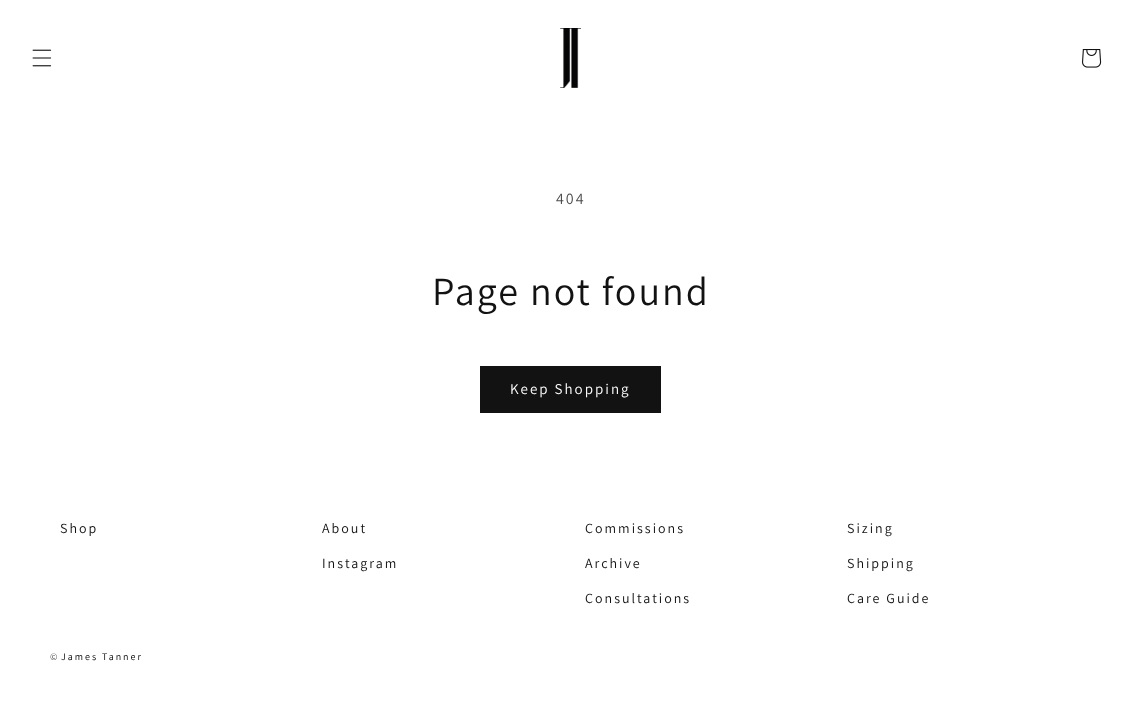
async function draw(canvas) {
  canvas.width = 1141;
  canvas.height = 726;
  const ctx = canvas.getContext('2d');
  ctx.miterLimit = 4;
  ctx.fontKerning = 'normal';
  function label(s, x, y, font, color) {
    ctx.font = font;
    ctx.fillStyle = color;
    ctx.fillText(s, x, y);
  }
  function rect(x, y, w, h, color) {
    ctx.fillStyle = color;
    ctx.fillRect(x, y, w, h);
  }
  async function image(src, x, y, w, h) {
    const img = new Image();
    img.src = src;
    await img.decode();
    ctx.drawImage(img, x, y, w, h);
  }

  rect(0, 0, 1141, 726, '#fff');
  await image('assets/img1.png', 32, 49, 20, 18);
  await image('assets/img2.png', 560, 28, 21, 60);
  await image('assets/img3.png', 1082, 49, 20, 19);
  ctx.letterSpacing = '2px';
  label('404', 556, 204, '16px Assistant', '#4d4d4d');
  label('Page not found', 432, 305, '40px Assistant', '#121212');
  rect(480, 366, 181, 47, '#121212');
  label('Keep Shopping', 510, 394, '15px Assistant', '#fff');
  label('Shop', 60, 533, '14px Assistant', '#121212');
  label('About', 322, 533, '14px Assistant', '#121212');
  label('Instagram', 322, 568, '14px Assistant', '#121212');
  label('Commissions', 585, 533, '14px Assistant', '#121212');
  label('Archive', 585, 568, '14px Assistant', '#121212');
  label('Consultations', 585, 603, '14px Assistant', '#121212');
  label('Sizing', 847, 533, '14px Assistant', '#121212');
  label('Shipping', 847, 568, '14px Assistant', '#121212');
  label('Care Guide', 847, 603, '14px Assistant', '#121212');
  ctx.letterSpacing = '1px';
  label('©', 50, 660, '10px Assistant', '#4d4d4d');
  ctx.letterSpacing = '2px';
  label('James Tanner', 61, 660, '10px Assistant', '#000');
}

draw(document.querySelector('canvas'));
